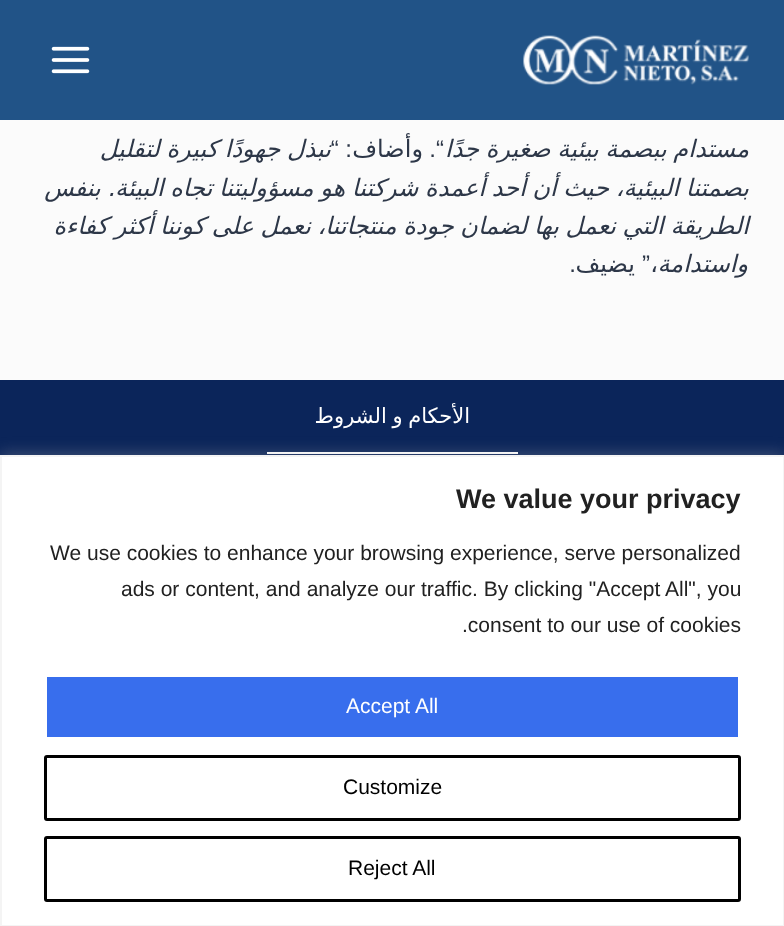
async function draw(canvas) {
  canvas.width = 784;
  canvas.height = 926;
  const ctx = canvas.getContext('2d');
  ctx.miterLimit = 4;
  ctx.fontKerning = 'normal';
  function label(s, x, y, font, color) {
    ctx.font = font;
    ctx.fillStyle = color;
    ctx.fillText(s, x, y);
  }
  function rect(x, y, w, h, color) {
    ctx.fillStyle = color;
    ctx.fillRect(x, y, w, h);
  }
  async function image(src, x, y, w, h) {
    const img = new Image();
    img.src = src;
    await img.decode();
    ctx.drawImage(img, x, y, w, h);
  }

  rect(0, 0, 784, 926, '#fbfbfb');
  rect(0, 0, 784, 120, '#215387');
  await image('assets/img1.png', 523, 35, 226, 50);
  await image('assets/img2.png', 51, 46, 39, 28);
  ctx.wordSpacing = '-1px';
  ctx.direction = 'rtl';
  label('مستدام ببصمة بيئية صغيرة جدًا', 749, 157, 'italic 24px DejaVu Sans', '#2d3748');
  ctx.wordSpacing = '0px';
  label('“.', 444, 157, '24px Liberation Sans', '#2d3748');
  label('وأضاف', 423, 157, '24px DejaVu Sans', '#2d3748');
  label(': “', 352, 157, '24px Liberation Sans', '#2d3748');
  ctx.wordSpacing = '-1px';
  label('نبذل جهودًا كبيرة لتقليل', 331, 157, 'italic 24px DejaVu Sans', '#2d3748');
  label('بصمتنا البيئية، حيث أن أحد أعمدة شركتنا هو مسؤوليتنا تجاه البيئة. بنفس', 749, 196, 'italic 24px DejaVu Sans', '#2d3748');
  label('الطريقة التي نعمل بها لضمان جودة منتجاتنا، نعمل على كوننا أكثر كفاءة', 749, 234, 'italic 24px DejaVu Sans', '#2d3748');
  ctx.wordSpacing = '0px';
  label('واستدامة', 748, 272, 'italic 24px DejaVu Sans', '#2d3748');
  label('”', 650, 272, '24px Liberation Sans', '#2d3748');
  label('،', 658, 272, '24px DejaVu Sans', '#2d3748');
  label('يضيف', 635, 272, '24px DejaVu Sans', '#2d3748');
  label('.', 576, 272, '24px Liberation Sans', '#2d3748');
  rect(0, 380, 784, 75, '#0b255a');
  rect(267, 452, 251, 2, '#fff');
  ctx.wordSpacing = '-1px';
  label('الأحكام و الشروط', 470, 423, '21px DejaVu Sans', '#fff');
  ctx.fillStyle = '#acabab4d';
  ctx.filter = 'blur(7.5px)';
  ctx.beginPath();
  ctx.rect(0, 453, 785, 473);
  ctx.fill();
  ctx.filter = 'none';
  ctx.fillStyle = '#fff';
  ctx.beginPath();
  ctx.rect(1, 456, 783, 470);
  ctx.fill();
  ctx.strokeStyle = '#f4f4f4';
  ctx.lineWidth = 2;
  ctx.stroke();
  ctx.wordSpacing = '0px';
  ctx.direction = 'ltr';
  label('We value your privacy', 456, 508, 'bold 27px Liberation Sans', '#212121');
  label('We use cookies to enhance your browsing experience, serve personalized', 50, 560, '21px Liberation Sans', '#212121');
  label('ads or content, and analyze our traffic. By clicking "Accept All", you', 121, 596, '21px Liberation Sans', '#212121');
  label('.consent to our use of cookies', 462, 632, '21px Liberation Sans', '#212121');
  ctx.fillStyle = '#386eed';
  ctx.beginPath();
  ctx.roundRect(45.5, 675.5, 694, 63, 1.5);
  ctx.fill();
  ctx.strokeStyle = '#fff';
  ctx.lineWidth = 3;
  ctx.stroke();
  label('Accept All', 346, 713, '21px Liberation Sans', '#fff');
  ctx.beginPath();
  ctx.roundRect(45.5, 756.5, 694, 63, 1.5);
  ctx.strokeStyle = '#000';
  ctx.stroke();
  label('Customize', 343, 794, '21px Liberation Sans', '#000');
  ctx.beginPath();
  ctx.roundRect(45.5, 837.5, 694, 63, 1.5);
  ctx.stroke();
  label('Reject All', 348, 875, '21px Liberation Sans', '#000');
}

draw(document.querySelector('canvas'));
